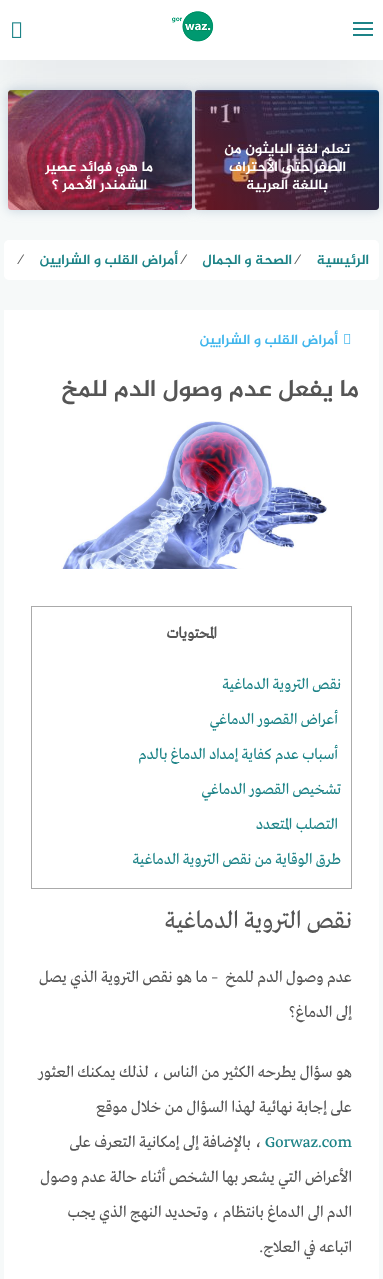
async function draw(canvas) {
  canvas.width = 383;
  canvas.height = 1279;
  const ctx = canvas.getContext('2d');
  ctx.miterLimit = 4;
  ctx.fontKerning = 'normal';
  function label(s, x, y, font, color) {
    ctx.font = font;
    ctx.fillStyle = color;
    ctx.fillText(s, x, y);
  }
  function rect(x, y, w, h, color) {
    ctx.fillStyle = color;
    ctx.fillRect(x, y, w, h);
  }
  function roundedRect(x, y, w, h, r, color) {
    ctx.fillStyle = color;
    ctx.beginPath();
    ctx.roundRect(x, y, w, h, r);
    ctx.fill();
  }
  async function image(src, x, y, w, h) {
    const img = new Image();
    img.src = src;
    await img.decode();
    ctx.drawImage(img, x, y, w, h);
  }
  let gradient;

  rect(0, 0, 383, 1279, '#f6f9f9');
  ctx.fillStyle = '#6e8fab61';
  ctx.filter = 'blur(6px)';
  ctx.beginPath();
  ctx.roundRect(195, 90, 184, 120, 4);
  ctx.fill();
  ctx.filter = 'none';
  await image('assets/img3.png', 195, 90, 184, 120);
  gradient = ctx.createLinearGradient(211, 226, 363, 74);
  gradient.addColorStop(0, '#e5192c66');
  gradient.addColorStop(1, '#0070c666');
  ctx.fillStyle = gradient;
  ctx.beginPath();
  ctx.roundRect(195, 90, 184, 120, 4);
  ctx.fill();
  ctx.fillStyle = '#6e8fab61';
  ctx.filter = 'blur(6px)';
  ctx.beginPath();
  ctx.roundRect(8, 90, 184, 120, 4);
  ctx.fill();
  ctx.filter = 'none';
  await image('assets/img4.png', 8, 90, 184, 120);
  gradient = ctx.createLinearGradient(24, 226, 176, 74);
  gradient.addColorStop(0, '#e5192c66');
  gradient.addColorStop(1, '#0070c666');
  ctx.fillStyle = gradient;
  ctx.beginPath();
  ctx.roundRect(8, 90, 184, 120, 4);
  ctx.fill();
  ctx.fillStyle = '#36394917';
  ctx.filter = 'blur(30px)';
  ctx.beginPath();
  ctx.rect(0, 29, 383, 60);
  ctx.fill();
  ctx.filter = 'none';
  rect(0, 0, 383, 60, '#fff');
  rect(353, 22, 20, 2, '#1d8387');
  rect(353, 28, 20, 2, '#1d8387');
  rect(353, 34, 20, 2, '#1d8387');
  await image('assets/img1.png', 172, 11, 42, 31);
  await image('assets/img2.png', 12, 22, 10, 16);
  ctx.direction = 'rtl';
  label('تعلم لغة البايثون من', 350, 153, 'bold 14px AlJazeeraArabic', '#fff');
  label('الصفر حتى الأحتراف', 346, 171, 'bold 14px AlJazeeraArabic', '#fff');
  label('باللغة العربية', 328, 189, 'bold 14px AlJazeeraArabic', '#fff');
  label('ما هي فوائد عصير', 153, 171, 'bold 14px AlJazeeraArabic', '#fff');
  label('الشمندر الأحمر ؟', 147, 189, 'bold 14px AlJazeeraArabic', '#fff');
  roundedRect(4, 240, 375, 40, 5, '#fff');
  label('الرئيسية', 369, 264, 'bold 14px AlJazeeraArabic', '#1d8387');
  ctx.direction = 'ltr';
  label('⁄', 297, 264, '14px Liberation Sans', '#555');
  ctx.direction = 'rtl';
  label('الصحة و الجمال', 292, 264, 'bold 14px AlJazeeraArabic', '#1d8387');
  ctx.direction = 'ltr';
  label('⁄', 183, 264, '14px Liberation Sans', '#555');
  ctx.direction = 'rtl';
  label('أمراض القلب و الشرايين', 178, 264, 'bold 14px AlJazeeraArabic', '#1d8387');
  ctx.direction = 'ltr';
  label('⁄', 20, 264, '14px Liberation Sans', '#555');
  rect(4, 310, 375, 969, '#fff');
  await image('assets/img5.png', 344, 334, 7, 10);
  ctx.direction = 'rtl';
  label('أمراض القلب و الشرايين', 338, 344, 'bold 14px AlJazeeraArabic', '#41b6ec');
  label('ما يفعل عدم وصول الدم للمخ', 359, 396, 'bold 24px AlJazeeraArabic', '#555');
  await image('assets/img6.png', 61, 421, 267, 148);
  ctx.strokeStyle = '#aaa';
  ctx.strokeRect(31.5, 606.5, 320, 282);
  label('المحتويات', 217, 638, 'bold 16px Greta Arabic', '#555');
  label('نقص التروية الدماغية', 341, 689, '16px Greta Arabic', '#1d8387');
  label('أعراض القصور الدماغي', 338, 724, '16px Greta Arabic', '#1d8387');
  label('أسباب عدم كفاية إمداد الدماغ بالدم', 338, 759, '16px Greta Arabic', '#1d8387');
  label('تشخيص القصور الدماغي', 341, 794, '16px Greta Arabic', '#1d8387');
  label('التصلب المتعدد', 338, 829, '16px Greta Arabic', '#1d8387');
  label('طرق الوقاية من نقص التروية الدماغية', 341, 864, '16px Greta Arabic', '#1d8387');
  label('نقص التروية الدماغية', 352, 928, '25.25px Greta Arabic', '#555');
  label('عدم وصول الدم للمخ  – ما هو نقص التروية الذي يصل', 352, 982, '16.75px Greta Arabic', '#555');
  label('إلى الدماغ؟', 352, 1017, '16.75px Greta Arabic', '#555');
  label('هو سؤال يطرحه الكثير من الناس ، لذلك يمكنك العثور', 352, 1077, '16.75px Greta Arabic', '#555');
  label('على إجابة نهائية لهذا السؤال من خلال موقع', 352, 1112, '16.75px Greta Arabic', '#555');
  ctx.direction = 'ltr';
  label('Gorwaz.com', 265, 1147, '16.75px Greta Arabic', '#1d8387');
  ctx.direction = 'rtl';
  label('، بالإضافة إلى إمكانية التعرف على', 262, 1147, '16.75px Greta Arabic', '#555');
  label('الأعراض التي يشعر بها الشخص أثناء حالة عدم وصول', 352, 1182, '16.75px Greta Arabic', '#555');
  label('الدم الى الدماغ بانتظام ، وتحديد النهج الذي يجب', 352, 1217, '16.75px Greta Arabic', '#555');
  label('اتباعه في العلاج.', 352, 1252, '16.75px Greta Arabic', '#555');
}

draw(document.querySelector('canvas'));
